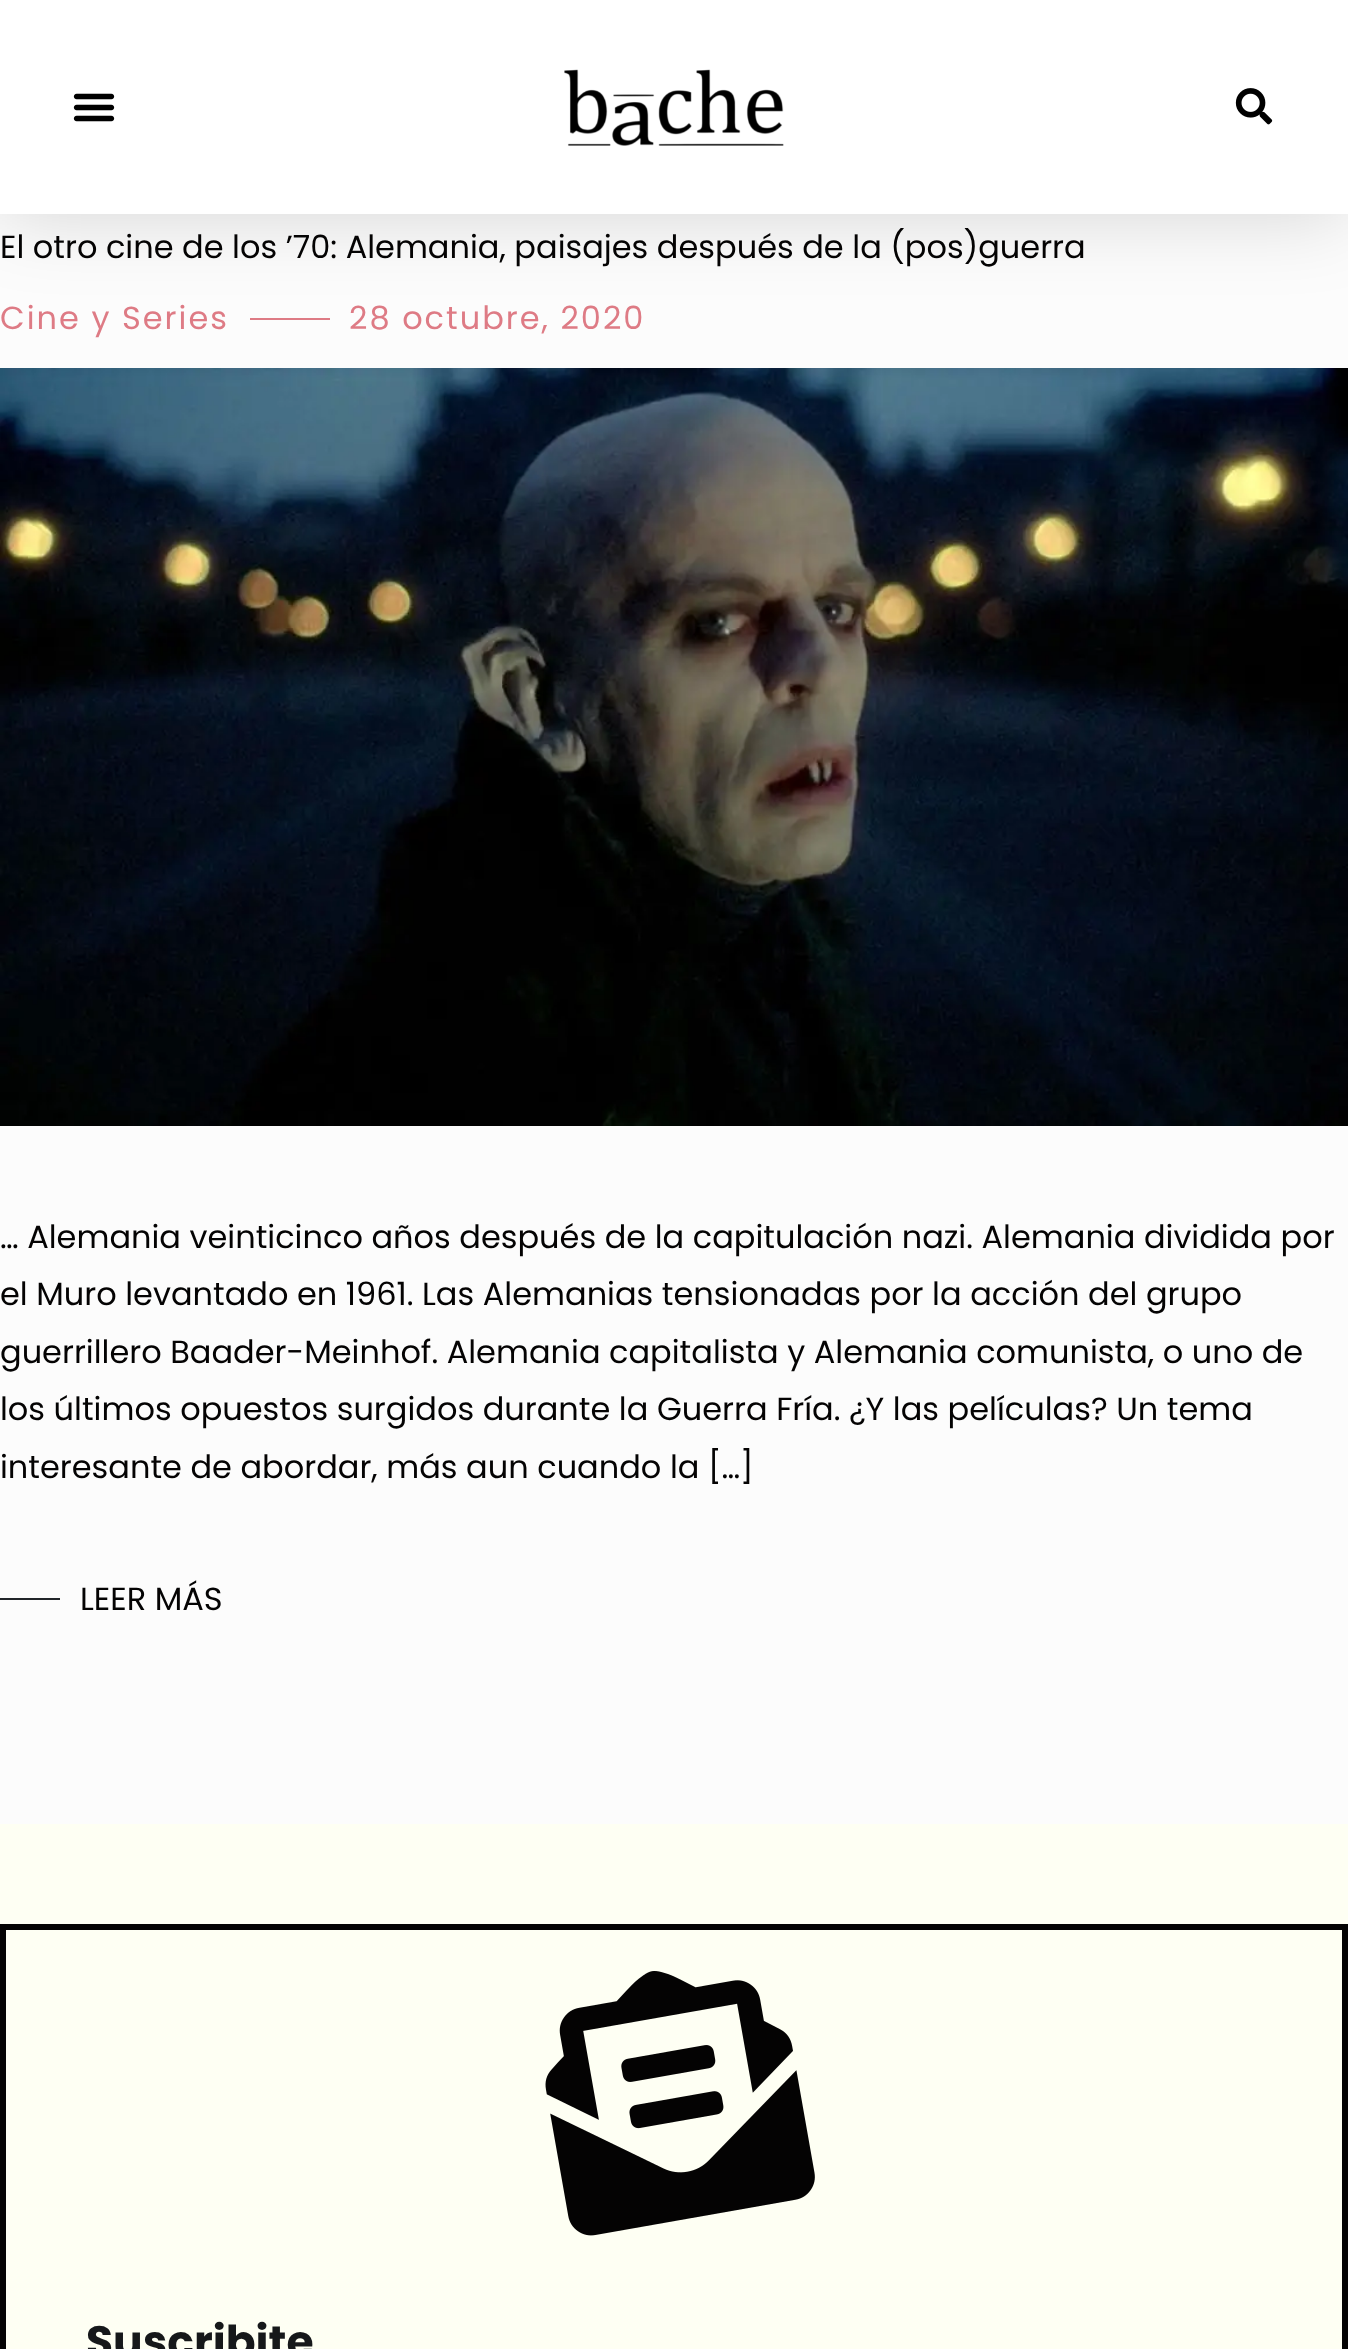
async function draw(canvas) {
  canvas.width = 1348;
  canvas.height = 2349;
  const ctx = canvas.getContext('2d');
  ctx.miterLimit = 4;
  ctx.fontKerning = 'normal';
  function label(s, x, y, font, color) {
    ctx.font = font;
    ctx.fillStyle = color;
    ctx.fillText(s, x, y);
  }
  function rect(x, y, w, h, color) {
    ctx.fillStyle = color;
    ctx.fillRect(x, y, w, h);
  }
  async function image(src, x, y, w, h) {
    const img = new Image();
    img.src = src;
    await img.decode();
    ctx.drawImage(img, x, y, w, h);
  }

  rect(0, 0, 1348, 2349, '#fcfcfc');
  rect(250, 318, 80, 2, '#de7b85');
  ctx.fillStyle = '#00000029';
  ctx.filter = 'blur(40px)';
  ctx.beginPath();
  ctx.rect(0, 0, 1348, 214);
  ctx.fill();
  ctx.filter = 'none';
  rect(0, 0, 1348, 214, '#fff');
  await image('assets/img1.png', 73, 93, 42, 29);
  await image('assets/img2.png', 564, 69, 220, 77);
  await image('assets/img3.png', 1235, 88, 38, 37);
  label('El otro cine de los ’70: Alemania, paisajes después de la (pos)guerra', 0, 258, '32px Poppins', '#040303');
  ctx.letterSpacing = '2px';
  label('Cine y Series', 0, 329, '32px Poppins', '#de7b85');
  label('28 octubre, 2020', 349, 329, '32px Poppins', '#de7b85');
  await image('assets/img4.png', 0, 368, 1348, 758);
  ctx.letterSpacing = '0px';
  label('… Alemania veinticinco años después de la capitulación nazi. Alemania dividida por', 0, 1248, '32px Poppins', '#040303');
  label('el Muro levantado en 1961. Las Alemanias tensionadas por la acción del grupo', 0, 1305, '32px Poppins', '#040303');
  label('guerrillero Baader-Meinhof. Alemania capitalista y Alemania comunista, o uno de', 0, 1363, '32px Poppins', '#040303');
  label('los últimos opuestos surgidos durante la Guerra Fría. ¿Y las películas? Un tema', 0, 1420, '32px Poppins', '#040303');
  label('interesante de abordar, más aun cuando la […]', 0, 1478, '32px Poppins', '#040303');
  rect(0, 1598, 60, 2, '#212529');
  label('LEER MÁS', 80, 1610, '32px Poppins', '#040303');
  rect(0, 1824, 1348, 525, '#fefff3');
  ctx.strokeStyle = '#040303';
  ctx.lineWidth = 6;
  ctx.strokeRect(3, 1927, 1342, 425);
  await image('assets/img5.png', 545, 1971, 270, 265);
  label('Suscribite', 86, 2357, 'bold 44px Poppins', '#16181a');
}

draw(document.querySelector('canvas'));
